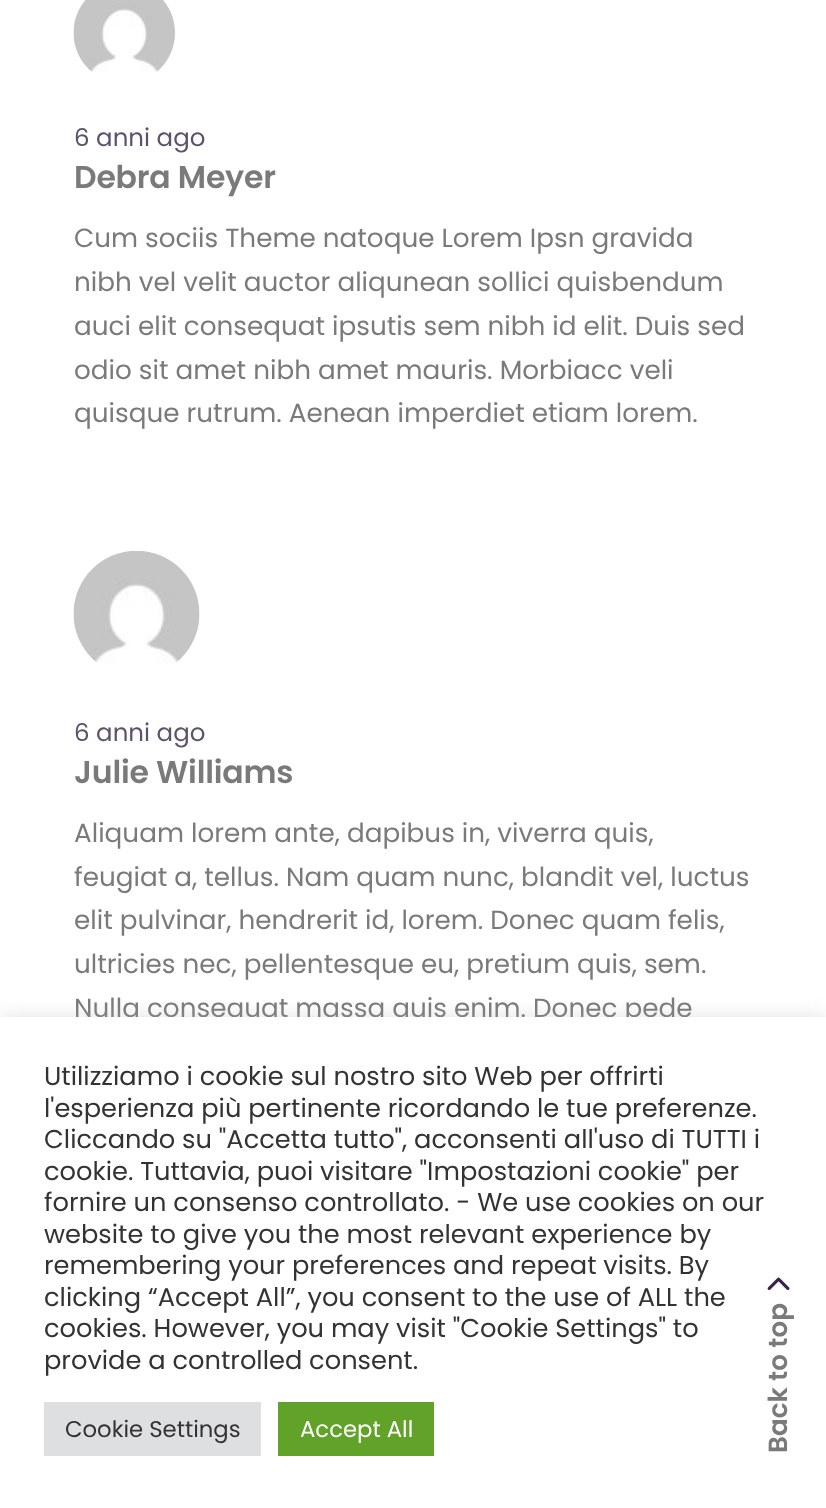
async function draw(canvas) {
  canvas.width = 826;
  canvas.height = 1508;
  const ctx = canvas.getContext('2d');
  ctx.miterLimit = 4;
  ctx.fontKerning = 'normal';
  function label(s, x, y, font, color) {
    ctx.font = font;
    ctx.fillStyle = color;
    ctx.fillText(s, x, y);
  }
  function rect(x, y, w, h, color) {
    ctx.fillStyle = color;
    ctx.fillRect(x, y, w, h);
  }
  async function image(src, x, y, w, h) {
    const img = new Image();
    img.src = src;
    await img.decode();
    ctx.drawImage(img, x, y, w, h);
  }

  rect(0, 0, 826, 1508, '#fff');
  await image('assets/img1.png', 73, 0, 102, 72);
  label('6 anni ago', 74, 146, '24.5px Poppins', '#5d516c');
  ctx.letterSpacing = '-0.2px';
  label('Debra Meyer', 74, 188, '600 31.5px Poppins', '#7a7a7a');
  ctx.letterSpacing = '0px';
  label('Cum sociis Theme natoque Lorem Ipsn gravida', 74, 247, '26.25px Poppins', '#7a7a7a');
  label('nibh vel velit auctor aliqunean sollici quisbendum', 74, 291, '26.25px Poppins', '#7a7a7a');
  label('auci elit consequat ipsutis sem nibh id elit. Duis sed', 74, 335, '26.25px Poppins', '#7a7a7a');
  label('odio sit amet nibh amet mauris. Morbiacc veli', 74, 379, '26.25px Poppins', '#7a7a7a');
  label('quisque rutrum. Aenean imperdiet etiam lorem.', 74, 422, '26.25px Poppins', '#7a7a7a');
  await image('assets/img2.png', 73, 551, 127, 112);
  label('6 anni ago', 74, 741, '24.5px Poppins', '#5d516c');
  ctx.letterSpacing = '-0.2px';
  label('Julie Williams', 74, 783, '600 31.5px Poppins', '#7a7a7a');
  ctx.letterSpacing = '0px';
  label('Aliquam lorem ante, dapibus in, viverra quis,', 74, 842, '26.25px Poppins', '#7a7a7a');
  label('feugiat a, tellus. Nam quam nunc, blandit vel, luctus', 74, 886, '26.25px Poppins', '#7a7a7a');
  label('elit pulvinar, hendrerit id, lorem. Donec quam felis,', 74, 929, '26.25px Poppins', '#7a7a7a');
  label('ultricies nec, pellentesque eu, pretium quis, sem.', 74, 973, '26.25px Poppins', '#7a7a7a');
  label('Nulla consequat massa quis enim. Donec pede', 74, 1017, '26.25px Poppins', '#7a7a7a');
  ctx.fillStyle = '#acabab4d';
  ctx.filter = 'blur(9px)';
  ctx.beginPath();
  ctx.rect(0, 1015, 826, 492);
  ctx.fill();
  ctx.filter = 'none';
  rect(0, 1017, 826, 491, '#fff');
  await image('assets/img3.png', 767, 1277, 23, 13);
  ctx.font = '600 26.25px Poppins';
  ctx.fillStyle = '#7a7a7a';
  ctx.save();
  ctx.translate(787, 1453);
  ctx.rotate(-90 * Math.PI / 180);
  ctx.fillText('Back to top', 0, 0);
  ctx.restore();
  label('Utilizziamo i cookie sul nostro sito Web per offrirti', 44, 1085, '25.7px Poppins', '#333');
  label('l\'esperienza più pertinente ricordando le tue preferenze.', 44, 1117, '25.7px Poppins', '#333');
  label('Cliccando su "Accetta tutto", acconsenti all\'uso di TUTTI i', 44, 1148, '25.7px Poppins', '#333');
  label('cookie. Tuttavia, puoi visitare "Impostazioni cookie" per', 44, 1180, '25.7px Poppins', '#333');
  label('fornire un consenso controllato. - We use cookies on our', 44, 1211, '25.7px Poppins', '#333');
  label('website to give you the most relevant experience by', 44, 1243, '25.7px Poppins', '#333');
  label('remembering your preferences and repeat visits. By', 44, 1274, '25.7px Poppins', '#333');
  label('clicking “Accept All”, you consent to the use of ALL the', 44, 1306, '25.7px Poppins', '#333');
  label('cookies. However, you may visit "Cookie Settings" to', 44, 1337, '25.7px Poppins', '#333');
  label('provide a controlled consent.', 44, 1369, '25.7px Poppins', '#333');
  rect(44, 1402, 217, 54, '#dedfe0');
  label('Cookie Settings', 65, 1437, '22.75px Poppins', '#333');
  rect(278, 1402, 156, 54, '#61a229');
  label('Accept All', 300, 1437, '22.75px Poppins', '#fff');
}

draw(document.querySelector('canvas'));
